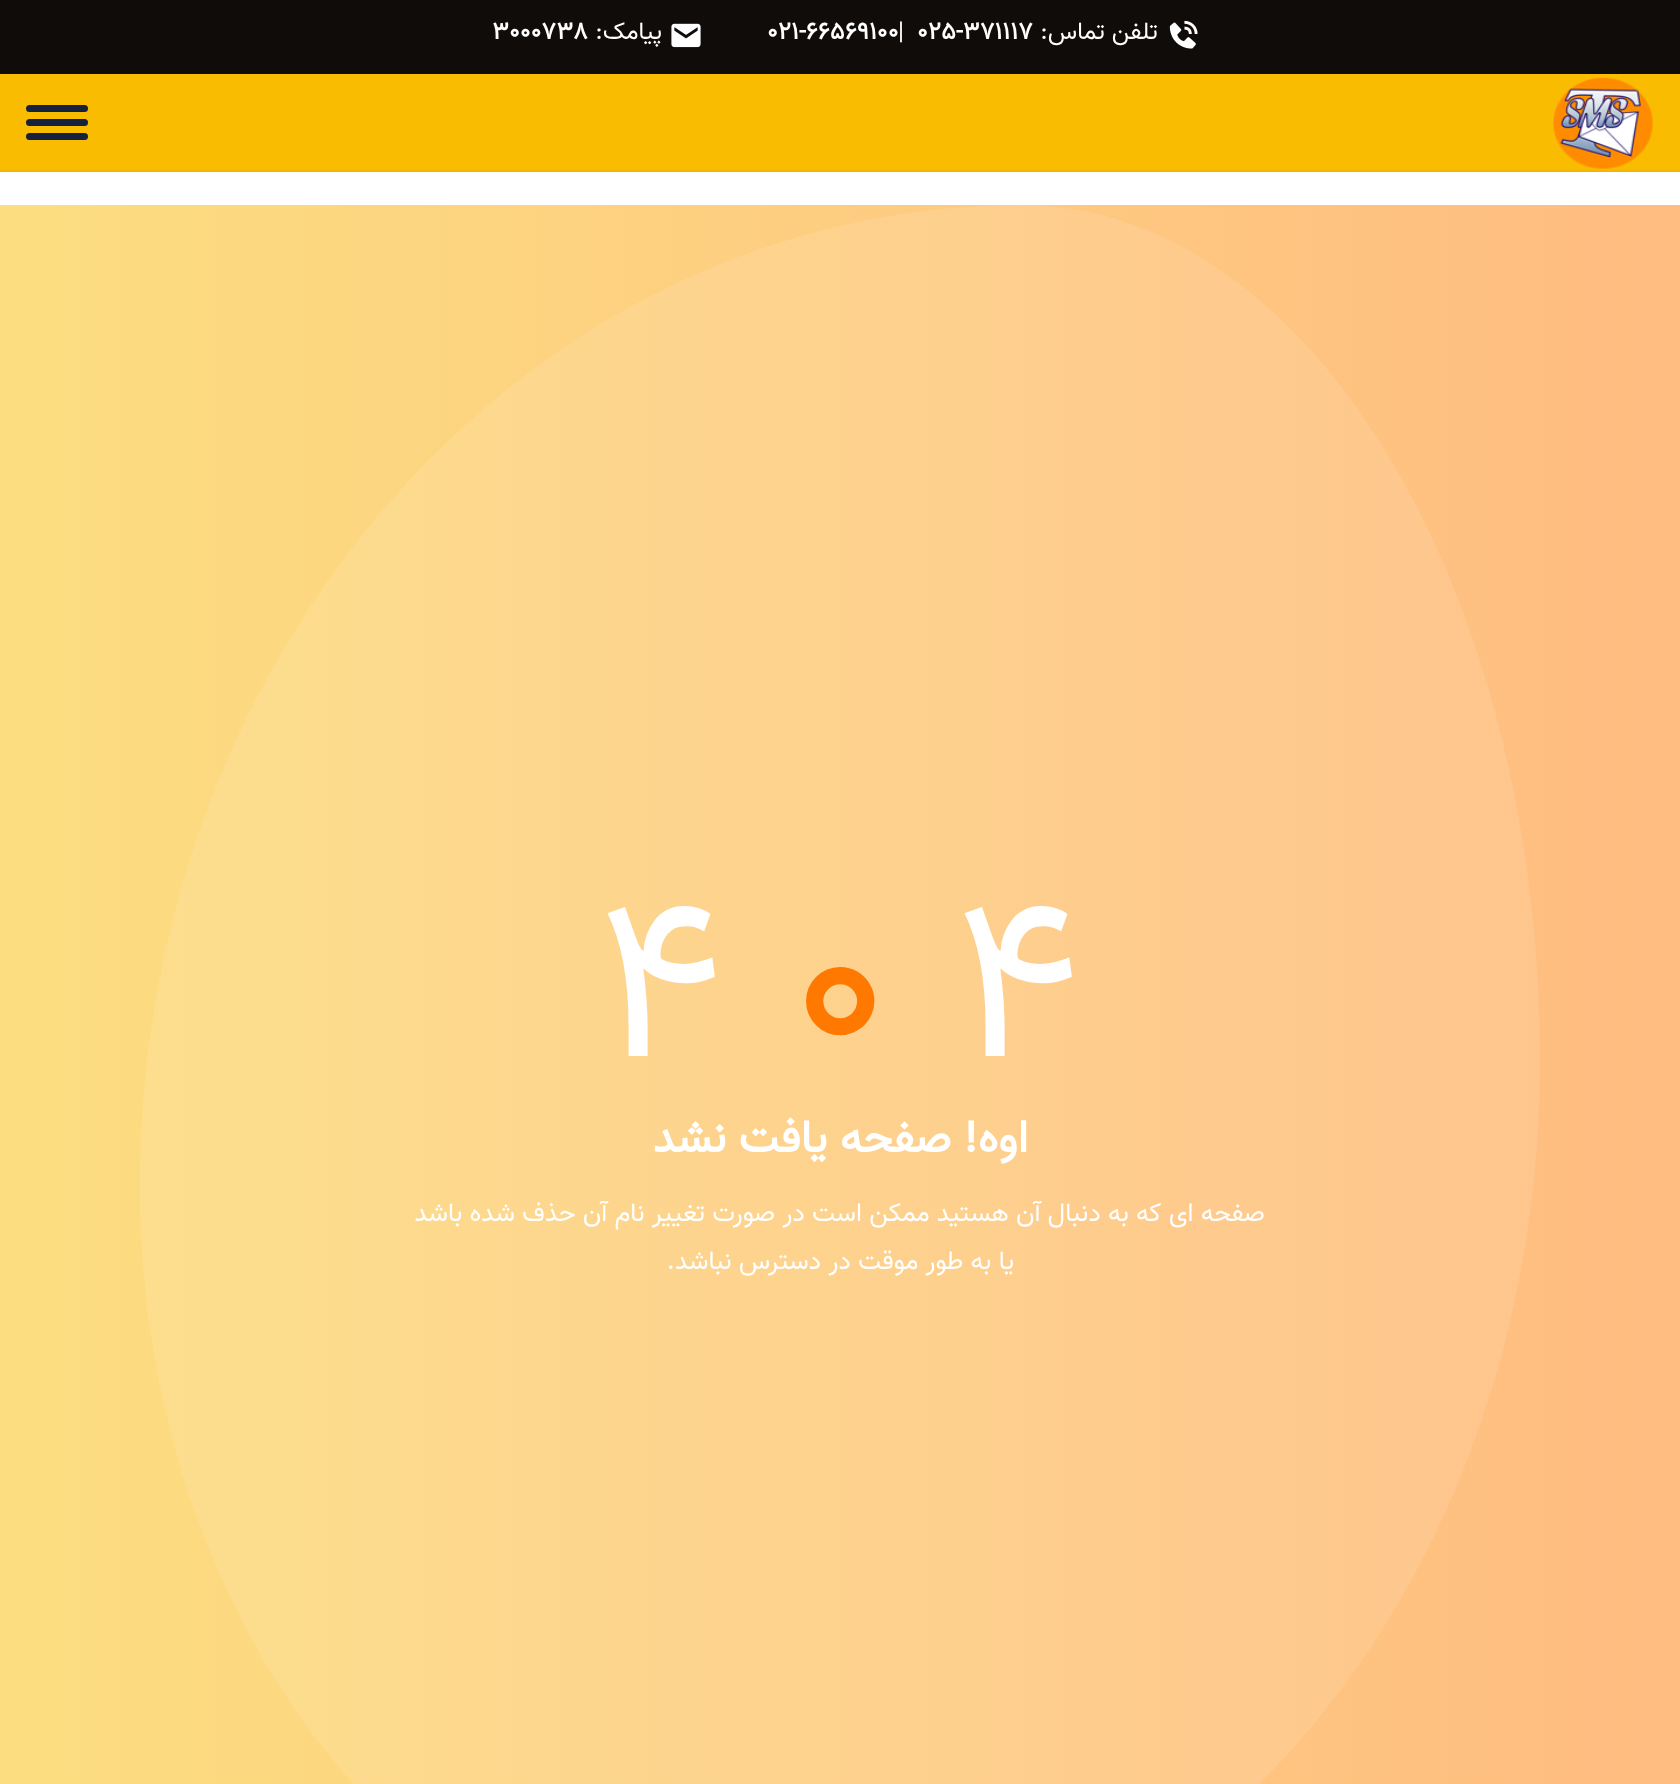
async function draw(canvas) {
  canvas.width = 1680;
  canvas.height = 1784;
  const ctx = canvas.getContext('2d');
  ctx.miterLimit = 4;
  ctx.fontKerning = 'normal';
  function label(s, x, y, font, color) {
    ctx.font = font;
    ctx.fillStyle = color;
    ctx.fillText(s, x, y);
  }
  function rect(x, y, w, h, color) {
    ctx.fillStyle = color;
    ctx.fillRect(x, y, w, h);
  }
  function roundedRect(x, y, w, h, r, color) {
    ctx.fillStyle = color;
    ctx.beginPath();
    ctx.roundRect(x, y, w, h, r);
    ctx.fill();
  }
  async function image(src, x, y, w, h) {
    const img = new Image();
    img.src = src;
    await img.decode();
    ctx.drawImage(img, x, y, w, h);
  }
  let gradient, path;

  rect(0, 0, 1680, 1784, '#fff');
  rect(0, 0, 1680, 74, '#0f0c0a');
  await image('assets/img1.png', 1169, 20, 29, 29);
  ctx.direction = 'rtl';
  label('تلفن تماس:', 1158, 39, '24.5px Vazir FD', '#fff');
  ctx.direction = 'ltr';
  label('025-371117', 917, 39, 'bold 24.5px Vazir FD', '#fff');
  label('|', 898, 39, '24.5px Vazir FD', '#fff');
  label('021-66569100', 767, 39, 'bold 24.5px Vazir FD', '#fff');
  await image('assets/img2.png', 671, 23, 30, 25);
  ctx.direction = 'rtl';
  label('پیامک:', 662, 39, '24.5px Vazir FD', '#fff');
  ctx.direction = 'ltr';
  label('3000738', 492, 39, 'bold 24.5px Vazir FD', '#fff');
  rect(0, 74, 1680, 96, '#f9bc01');
  rect(0, 170, 1680, 2, '#f2b601');
  roundedRect(26, 105, 62, 7, 3.5, '#16213e');
  roundedRect(26, 119, 62, 7, 3.5, '#16213e');
  roundedRect(26, 133, 62, 7, 3.5, '#16213e');
  await image('assets/img3.png', 1553, 77, 100, 92);
  gradient = ctx.createLinearGradient(0, 1097, 1680, 1097);
  gradient.addColorStop(0, '#fcde80');
  gradient.addColorStop(1, '#ffbc80');
  ctx.fillStyle = gradient;
  ctx.fillRect(0, 205, 1680, 1579);
  ctx.fillStyle = '#ffffff1a';
  path = new Path2D('M1022 205C1308 205 1540 588 1540 1062C1540 1574 1202 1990 784 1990C428 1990 140 1630 140 1186C140 644 535 205 1022 205Z');
  ctx.fill(path);
  label('4', 952, 1056, '228px Vazir FD', '#fff');
  label('0', 790, 1056, '228px Vazir FD', '#ff7900');
  label('4', 595, 1056, '228px Vazir FD', '#fff');
  ctx.direction = 'rtl';
  label('اوه! صفحه یافت نشد', 1028, 1152, 'bold 45.5px Vazir FD', '#fff');
  label('صفحه ای که به دنبال آن هستید ممکن است در صورت تغییر نام آن حذف شده باشد', 1265, 1221, '26.25px Vazir FD', '#fff');
  label('یا به طور موقت در دسترس نباشد.', 1014, 1269, '26.25px Vazir FD', '#fff');
}

draw(document.querySelector('canvas'));
